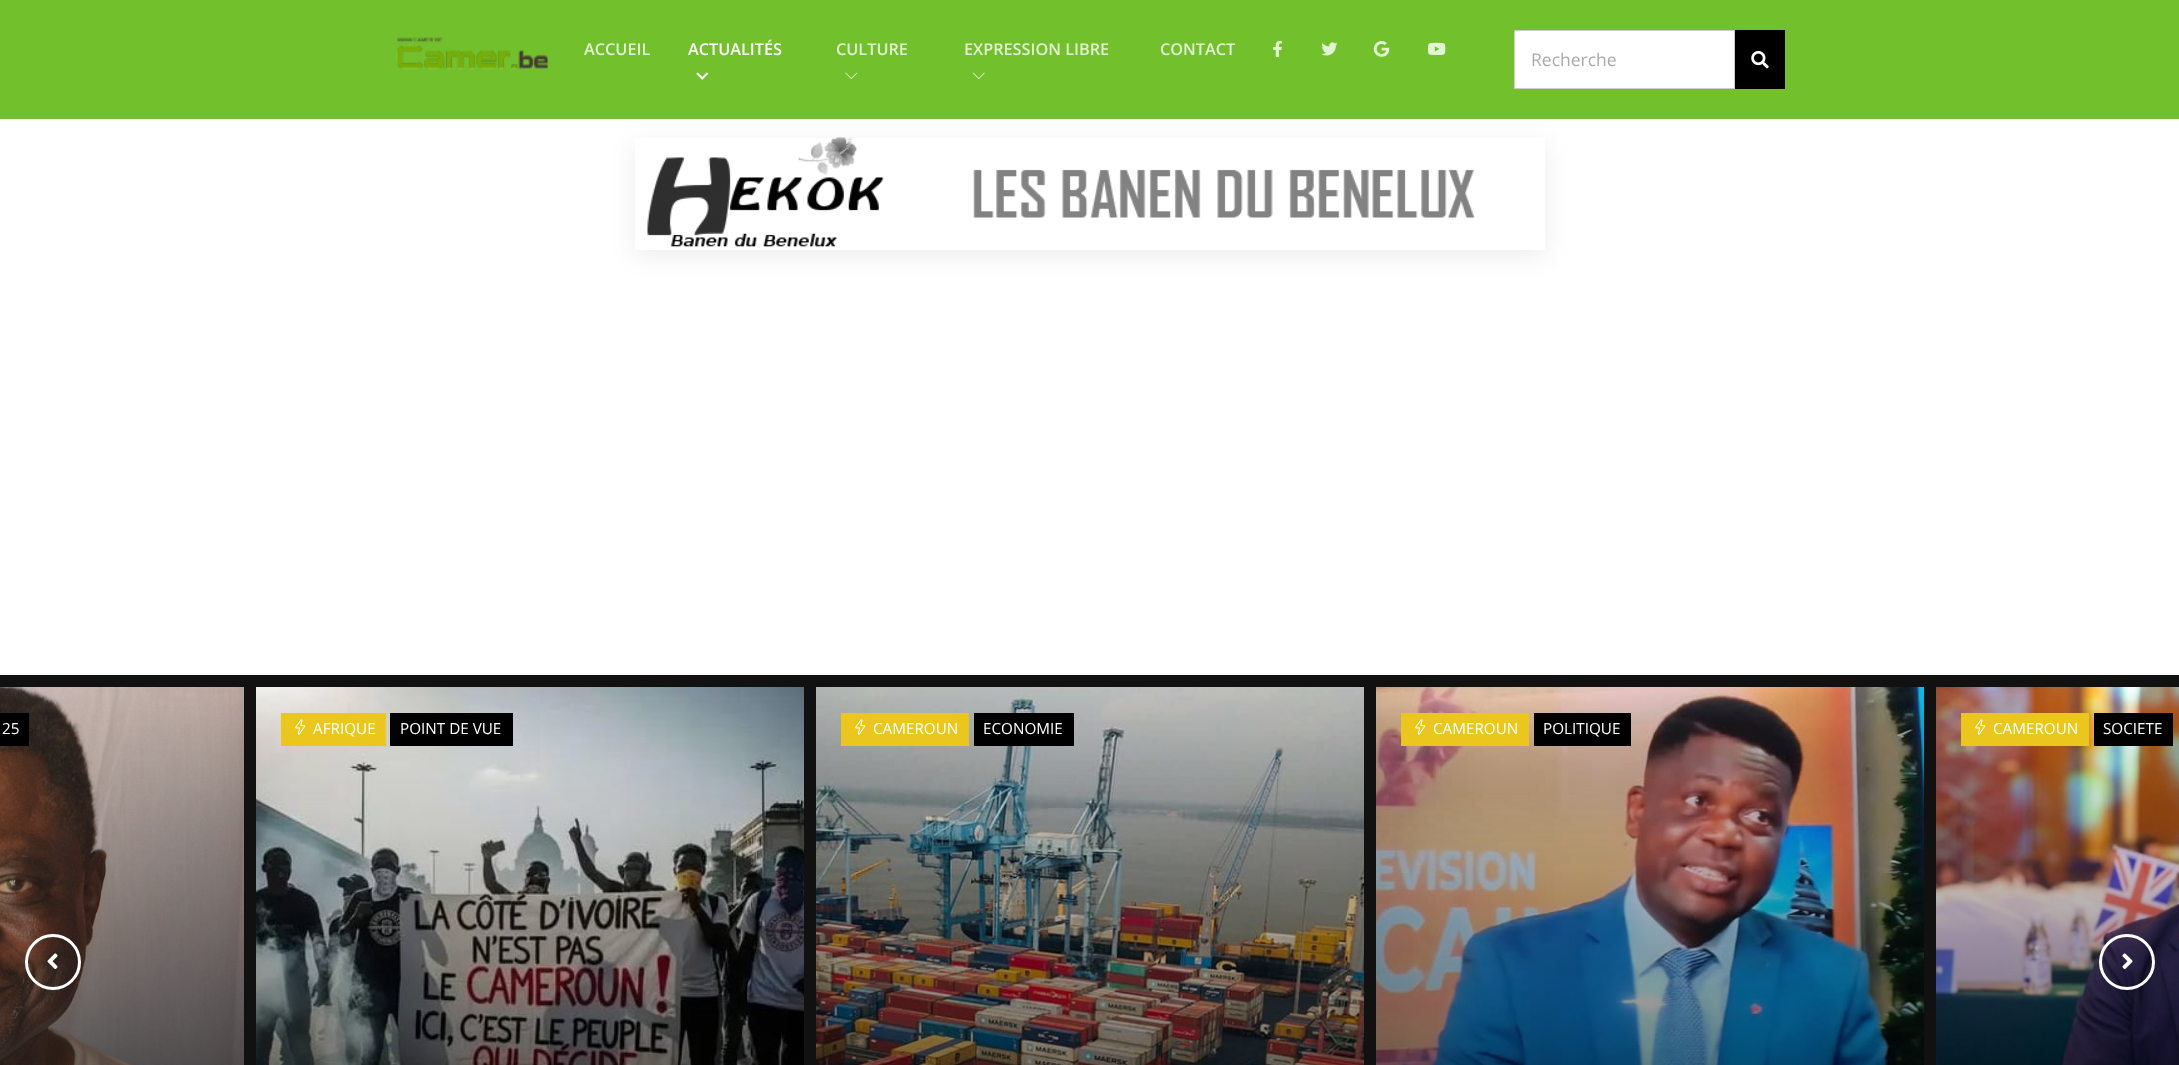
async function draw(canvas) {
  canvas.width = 2179;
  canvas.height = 1065;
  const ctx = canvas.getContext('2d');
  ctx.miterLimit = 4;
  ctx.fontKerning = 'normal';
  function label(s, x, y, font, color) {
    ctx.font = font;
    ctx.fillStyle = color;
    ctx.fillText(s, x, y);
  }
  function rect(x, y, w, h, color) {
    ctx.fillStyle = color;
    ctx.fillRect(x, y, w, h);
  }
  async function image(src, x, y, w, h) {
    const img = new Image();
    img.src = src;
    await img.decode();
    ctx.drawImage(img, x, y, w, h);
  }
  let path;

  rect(0, 0, 2179, 1065, '#fff');
  ctx.save();
  path = new Path2D('M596 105H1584V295H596ZM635 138H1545V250H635Z');
  ctx.clip(path, 'evenodd');
  ctx.fillStyle = '#00000012';
  ctx.filter = 'blur(12.5px)';
  ctx.beginPath();
  ctx.rect(635, 144, 910, 112);
  ctx.fill();
  ctx.filter = 'none';
  ctx.restore();
  rect(0, 0, 2179, 119, '#72c02c');
  await image('assets/img1.png', 396, 37, 152, 33);
  label('ACCUEIL', 584, 55, '600 16.25px Open Sans', '#e3f2d5');
  label('ACTUALITÉS', 688, 55, '600 16.25px Open Sans', '#fff');
  await image('assets/img2.png', 696, 72, 13, 8);
  label('CULTURE', 836, 55, '600 16.25px Open Sans', '#e3f2d5');
  await image('assets/img3.png', 845, 72, 13, 7);
  label('EXPRESSION LIBRE', 964, 55, '600 16.25px Open Sans', '#e3f2d5');
  await image('assets/img4.png', 972, 72, 13, 7);
  label('CONTACT', 1160, 55, '600 16.25px Open Sans', '#e3f2d5');
  await image('assets/img5.png', 1273, 40, 9, 17);
  await image('assets/img6.png', 1321, 42, 17, 14);
  await image('assets/img7.png', 1373, 41, 17, 16);
  await image('assets/img8.png', 1428, 42, 18, 13);
  ctx.fillStyle = '#fff';
  ctx.beginPath();
  ctx.rect(1514.5, 30.5, 220, 58);
  ctx.fill();
  ctx.strokeStyle = '#ccc';
  ctx.stroke();
  label('Recherche', 1531, 66, '17.5px Open Sans', '#aaa');
  rect(1735, 30, 50, 59, '#000');
  await image('assets/img9.png', 1751, 50, 18, 19);
  await image('assets/img10.png', 647, 137, 828, 110);
  rect(0, 675, 2179, 390, '#111');
  await image('assets/img11.png', 0, 687, 244, 378);
  rect(0, 713, 29, 33, '#000');
  label('25', 2, 734, '15.25px Open Sans', '#fff');
  await image('assets/img12.png', 256, 687, 548, 378);
  rect(281, 713, 105, 33, '#ebc71d');
  await image('assets/img13.png', 295, 719, 11, 16);
  label('AFRIQUE', 313, 734, '15.25px Open Sans', '#fff');
  rect(390, 713, 123, 33, '#000');
  label('POINT DE VUE', 400, 734, '15.25px Open Sans', '#fff');
  await image('assets/img14.png', 816, 687, 548, 378);
  rect(841, 713, 128, 33, '#ebc71d');
  await image('assets/img13.png', 855, 719, 11, 16);
  label('CAMEROUN', 873, 734, '15.25px Open Sans', '#fff');
  rect(974, 713, 100, 33, '#000');
  label('ECONOMIE', 983, 734, '15.25px Open Sans', '#fff');
  await image('assets/img15.png', 1376, 687, 548, 378);
  rect(1401, 713, 128, 33, '#ebc71d');
  await image('assets/img13.png', 1415, 719, 11, 16);
  label('CAMEROUN', 1433, 734, '15.25px Open Sans', '#fff');
  rect(1534, 713, 97, 33, '#000');
  label('POLITIQUE', 1543, 734, '15.25px Open Sans', '#fff');
  await image('assets/img16.png', 1936, 687, 243, 378);
  rect(1961, 713, 128, 33, '#ebc71d');
  await image('assets/img13.png', 1975, 719, 11, 16);
  label('CAMEROUN', 1993, 734, '15.25px Open Sans', '#fff');
  rect(2094, 713, 79, 33, '#000');
  label('SOCIETE', 2103, 734, '15.25px Open Sans', '#fff');
  ctx.beginPath();
  ctx.arc(53, 962, 26.5, 0, 2 * Math.PI);
  ctx.strokeStyle = '#fff';
  ctx.lineWidth = 3;
  ctx.stroke();
  await image('assets/img17.png', 47, 953, 11, 16);
  ctx.beginPath();
  ctx.arc(2127, 962, 26.5, 0, 2 * Math.PI);
  ctx.stroke();
  await image('assets/img18.png', 2122, 953, 11, 16);
}

draw(document.querySelector('canvas'));
